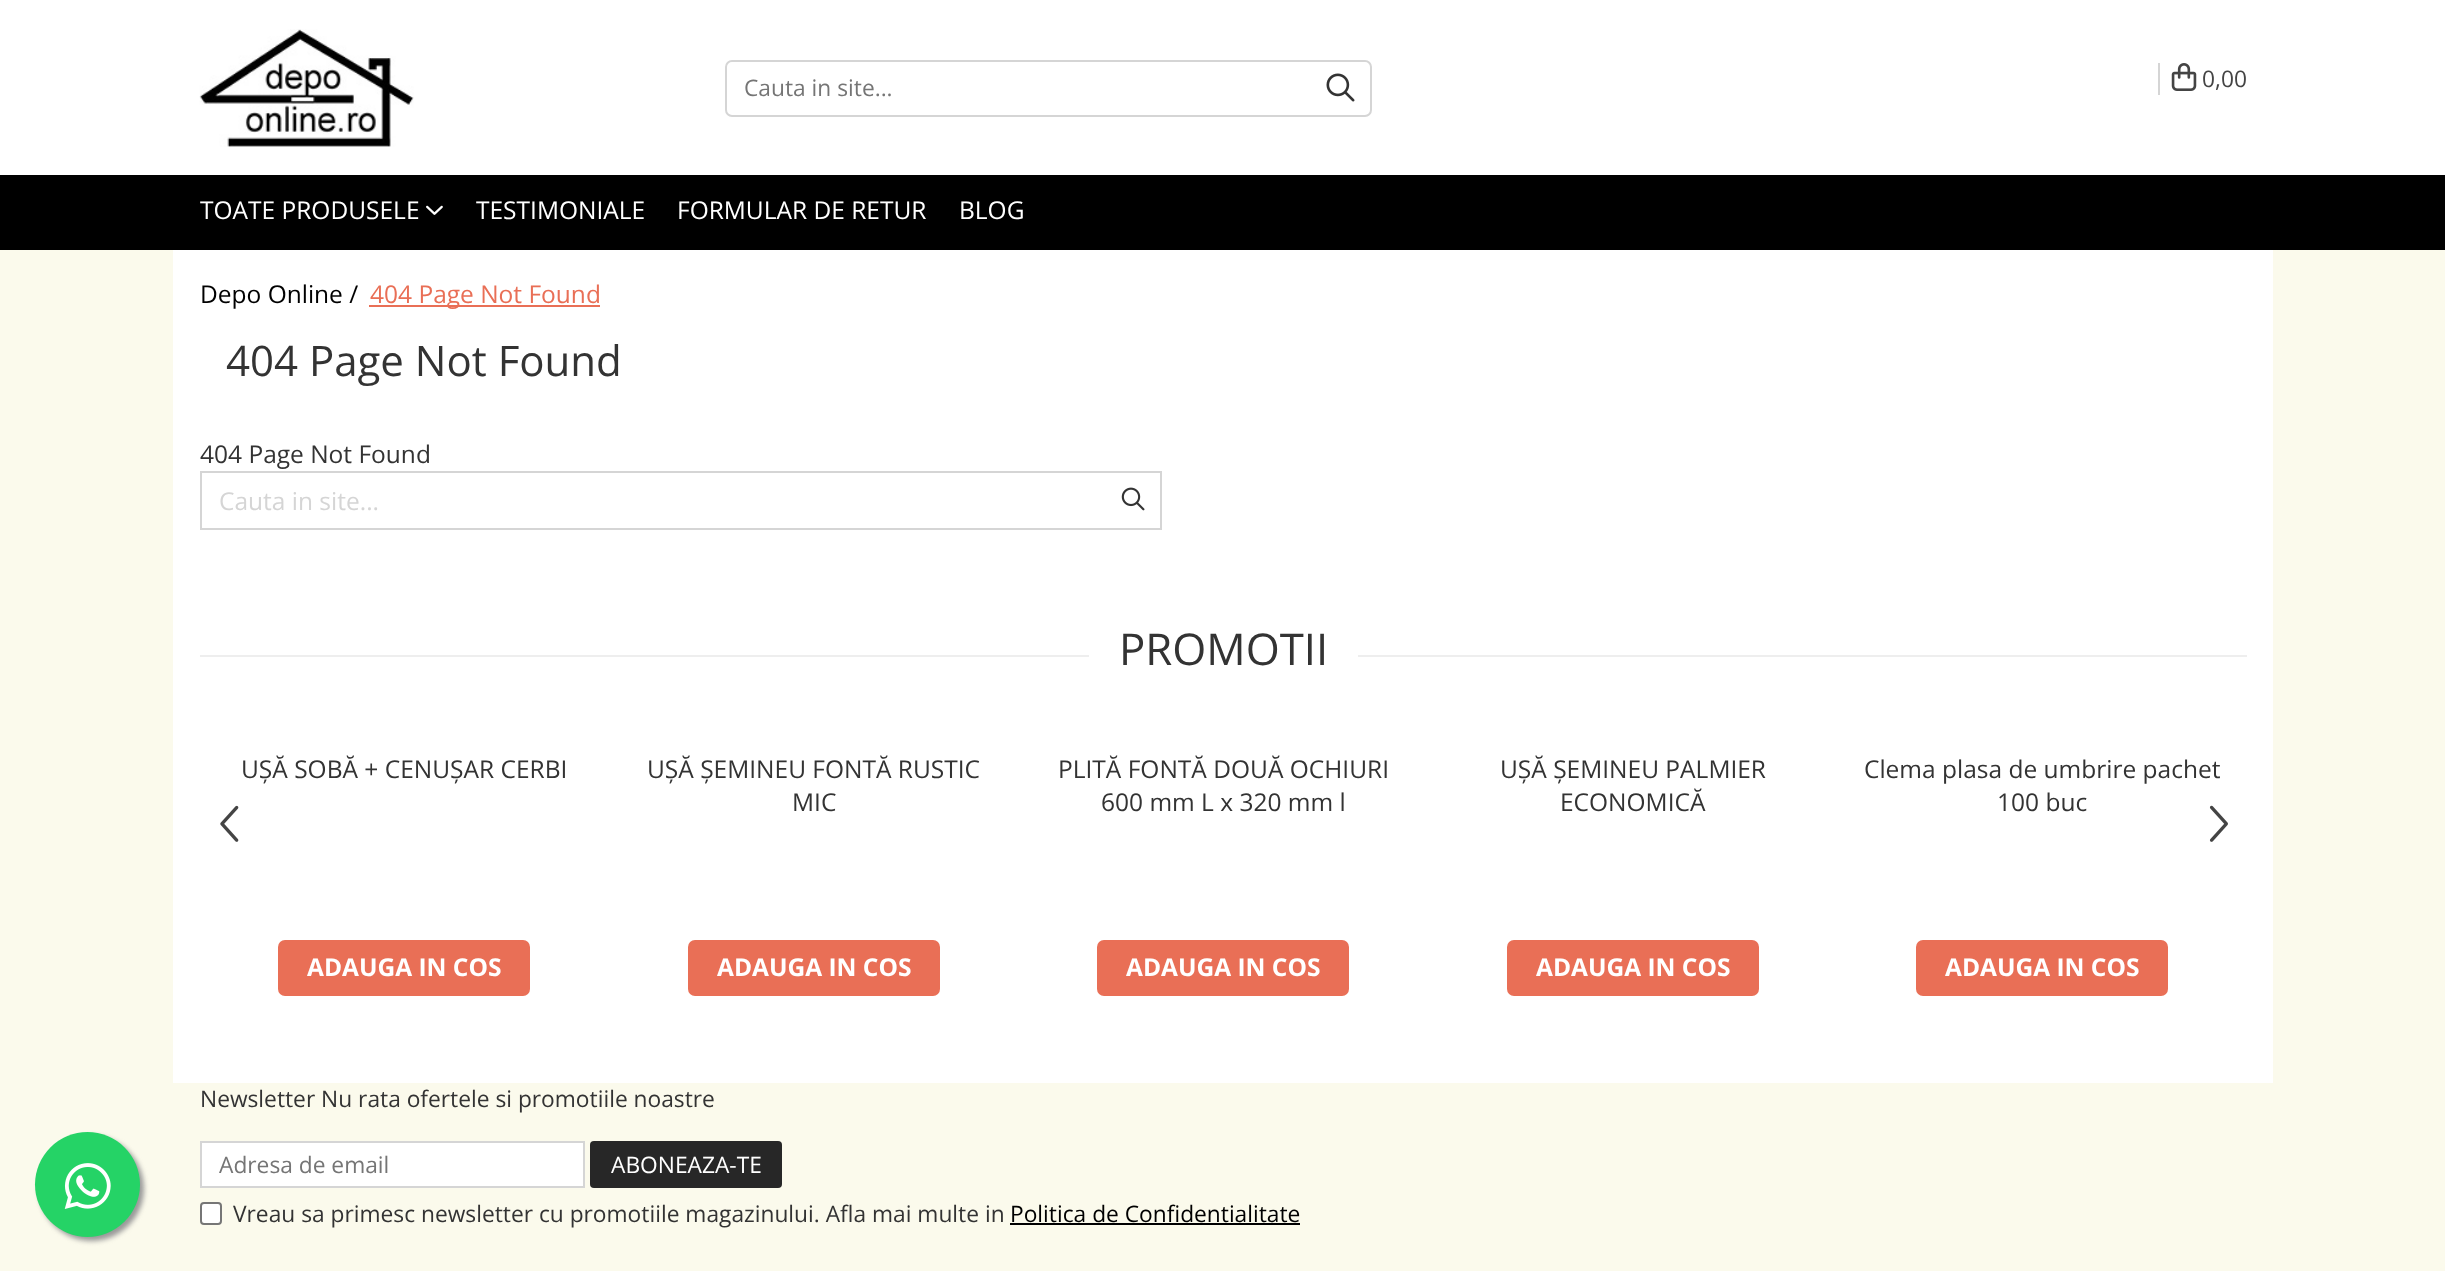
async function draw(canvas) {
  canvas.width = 2445;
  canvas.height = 1271;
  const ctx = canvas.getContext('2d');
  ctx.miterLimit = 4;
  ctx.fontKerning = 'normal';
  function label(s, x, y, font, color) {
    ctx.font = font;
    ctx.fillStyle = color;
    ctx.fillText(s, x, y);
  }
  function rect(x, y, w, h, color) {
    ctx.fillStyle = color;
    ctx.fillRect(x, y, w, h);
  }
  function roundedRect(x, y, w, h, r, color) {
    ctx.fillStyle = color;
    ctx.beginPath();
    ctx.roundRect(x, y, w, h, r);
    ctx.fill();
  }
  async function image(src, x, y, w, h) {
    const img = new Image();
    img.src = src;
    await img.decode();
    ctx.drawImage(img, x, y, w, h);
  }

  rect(0, 0, 2445, 1271, '#fbfaec');
  ctx.fillStyle = '#999';
  ctx.filter = 'blur(2.5px)';
  ctx.beginPath();
  ctx.roundRect(39, 1136, 105, 105, 52.5);
  ctx.fill();
  ctx.filter = 'none';
  ctx.fillStyle = '#25d366';
  ctx.beginPath();
  ctx.arc(87.5, 1184.5, 52.5, 0, 2 * Math.PI);
  ctx.fill();
  await image('assets/img1.png', 64, 1163, 47, 46);
  rect(0, 0, 2445, 175, '#fff');
  await image('assets/img2.png', 199, 29, 215, 118);
  ctx.beginPath();
  ctx.roundRect(726, 61, 645, 55, 6);
  ctx.strokeStyle = '#d5d5d5';
  ctx.lineWidth = 2;
  ctx.stroke();
  label('Cauta in site...', 744, 96, '22.75px Open Sans', '#757575');
  await image('assets/img3.png', 1326, 73, 29, 29);
  rect(2158, 63, 2, 32, '#d5d5d5');
  await image('assets/img4.png', 2171, 63, 26, 28);
  label('0,00', 2202, 87, '22.75px Open Sans', '#444');
  rect(0, 175, 2445, 75, '#000');
  label('TOATE PRODUSELE', 200, 219, '24.5px Open Sans', '#fff');
  await image('assets/img5.png', 426, 205, 17, 10);
  label('TESTIMONIALE', 476, 219, '24.5px Open Sans', '#fff');
  label('FORMULAR DE RETUR', 677, 219, '24.5px Open Sans', '#fff');
  label('BLOG', 959, 219, '24.5px Open Sans', '#fff');
  rect(173, 250, 2100, 833, '#fff');
  label('Depo Online /', 200, 303, '24.5px Open Sans', '#000');
  rect(369, 305, 231, 2, '#e96f56');
  label('404 Page Not Found', 370, 303, '24.5px Open Sans', '#e96f56');
  label('404 Page Not Found', 226, 376, '42px Open Sans', '#333');
  label('404 Page Not Found', 200, 463, '24.5px Open Sans', '#333');
  ctx.strokeRect(201, 472, 960, 57);
  label('Cauta in site...', 219, 510, '24.5px Open Sans', '#d5d5d5');
  await image('assets/img6.png', 1121, 487, 24, 24);
  rect(200, 655, 2047, 2, '#eee');
  rect(1089, 655, 269, 2, '#fff');
  label('PROMOTII', 1119, 665, '43.75px Open Sans', '#333');
  label('UȘĂ SOBĂ + CENUȘAR CERBI', 241, 778, '24.5px Open Sans', '#333');
  roundedRect(278, 940, 252, 56, 7, '#e96f56');
  label('ADAUGA IN COS', 307, 976, 'bold 24.5px Open Sans', '#fff');
  label('UȘĂ ȘEMINEU FONTĂ RUSTIC', 647, 778, '24.5px Open Sans', '#333');
  label('MIC', 792, 811, '24.5px Open Sans', '#333');
  roundedRect(688, 940, 252, 56, 7, '#e96f56');
  label('ADAUGA IN COS', 717, 976, 'bold 24.5px Open Sans', '#fff');
  label('PLITĂ FONTĂ DOUĂ OCHIURI', 1058, 778, '24.5px Open Sans', '#333');
  label('600 mm L x 320 mm l', 1101, 811, '24.5px Open Sans', '#333');
  roundedRect(1097, 940, 252, 56, 7, '#e96f56');
  label('ADAUGA IN COS', 1126, 976, 'bold 24.5px Open Sans', '#fff');
  label('UȘĂ ȘEMINEU PALMIER', 1500, 778, '24.5px Open Sans', '#333');
  label('ECONOMICĂ', 1560, 811, '24.5px Open Sans', '#333');
  roundedRect(1507, 940, 252, 56, 7, '#e96f56');
  label('ADAUGA IN COS', 1536, 976, 'bold 24.5px Open Sans', '#fff');
  label('Clema plasa de umbrire pachet', 1864, 778, '24.5px Open Sans', '#333');
  label('100 buc', 1997, 811, '24.5px Open Sans', '#333');
  roundedRect(1916, 940, 252, 56, 7, '#e96f56');
  label('ADAUGA IN COS', 1945, 976, 'bold 24.5px Open Sans', '#fff');
  await image('assets/img7.png', 220, 805, 19, 37);
  await image('assets/img8.png', 2209, 805, 19, 37);
  label('Newsletter Nu rata ofertele si promotiile noastre', 200, 1107, '22.75px Open Sans', '#333');
  ctx.fillStyle = '#fff';
  ctx.beginPath();
  ctx.rect(201, 1142, 383, 45);
  ctx.fill();
  ctx.stroke();
  label('Adresa de email', 219, 1173, '22.75px Open Sans', '#757575');
  roundedRect(590, 1141, 192, 47, 4, '#272727');
  label('ABONEAZA-TE', 611, 1173, '22.75px Open Sans', '#fff');
  ctx.beginPath();
  ctx.roundRect(201, 1203, 20, 21, 3);
  ctx.fill();
  ctx.strokeStyle = '#767676';
  ctx.stroke();
  label('Vreau sa primesc newsletter cu promotiile magazinului. Afla mai multe in', 233, 1222, '22.75px Open Sans', '#333');
  label('Politica de Confidentialitate', 1010, 1222, '22.75px Open Sans', '#000');
  rect(1010, 1223, 290, 2, '#000');
}

draw(document.querySelector('canvas'));
